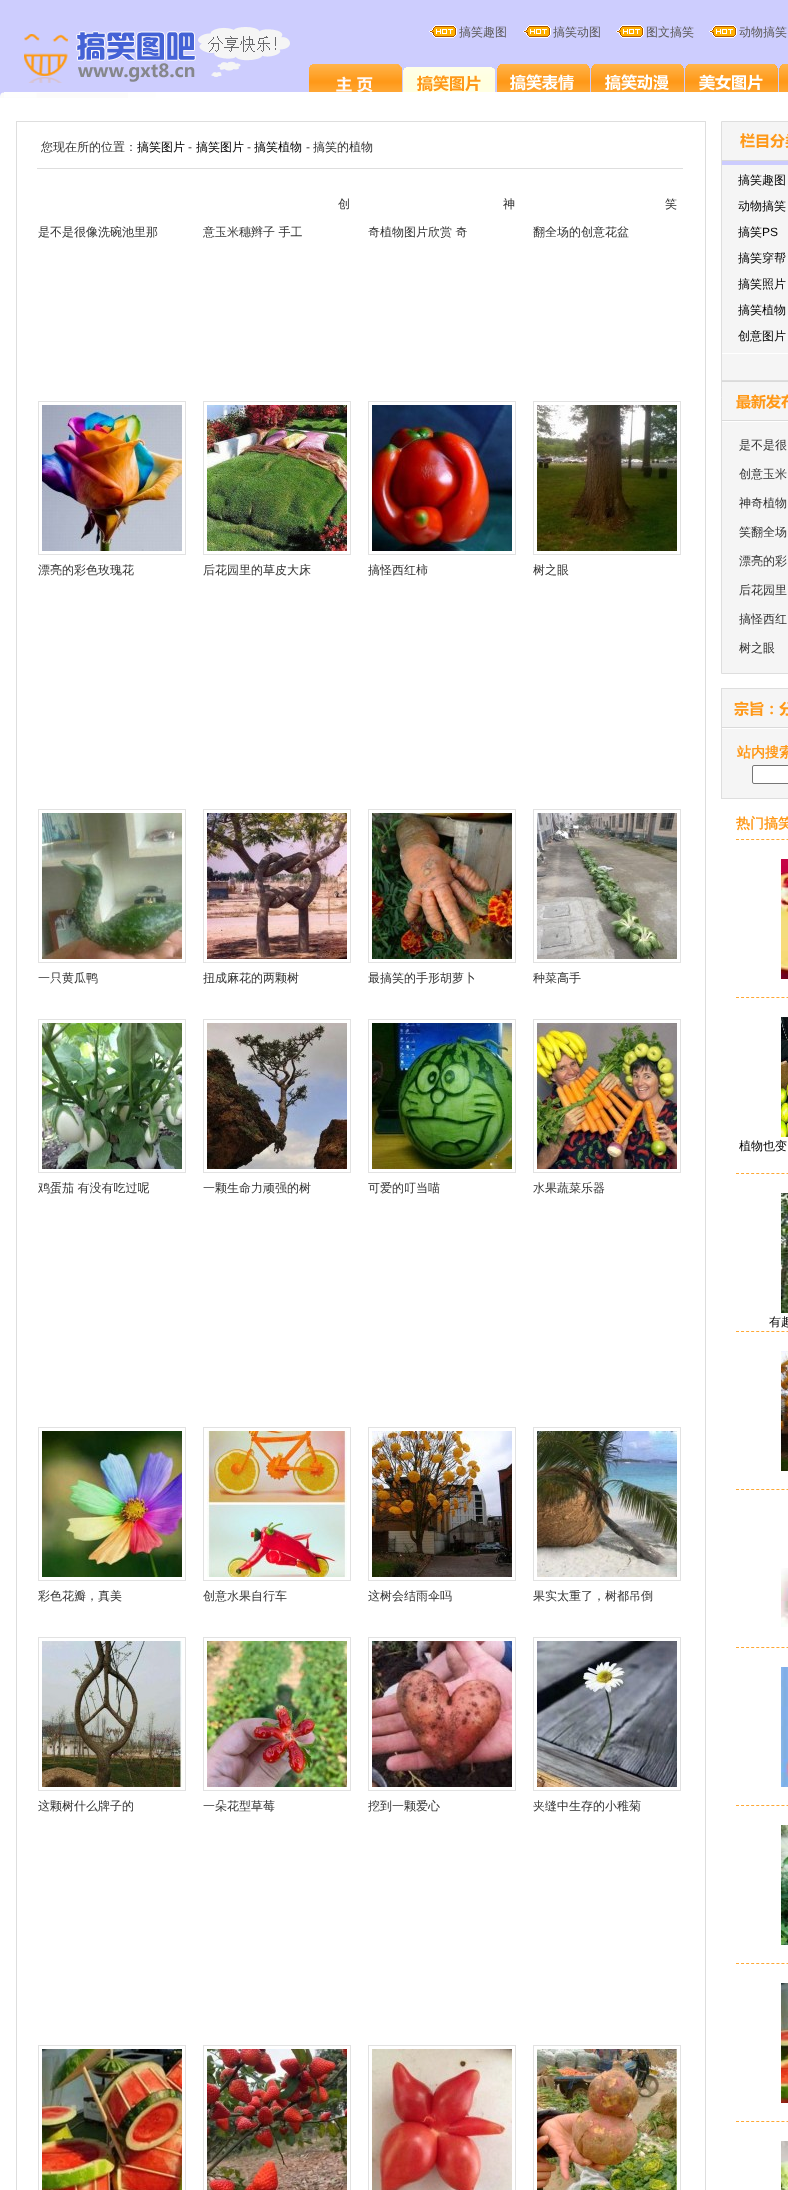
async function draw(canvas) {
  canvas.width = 788;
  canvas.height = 2190;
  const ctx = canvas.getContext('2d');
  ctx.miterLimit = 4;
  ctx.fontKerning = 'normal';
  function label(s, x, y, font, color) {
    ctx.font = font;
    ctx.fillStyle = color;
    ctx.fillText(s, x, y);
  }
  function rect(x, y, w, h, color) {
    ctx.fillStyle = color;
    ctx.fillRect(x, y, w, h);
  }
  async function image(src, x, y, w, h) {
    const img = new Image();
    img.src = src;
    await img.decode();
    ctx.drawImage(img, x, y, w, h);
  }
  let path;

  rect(0, 0, 788, 2190, '#fff');
  await image('assets/img1.png', 0, 0, 788, 92);
  await image('assets/img2.png', 24, 27, 266, 56);
  await image('assets/img3.png', 429, 25, 28, 13);
  label('搞笑趣图', 459, 36, '500 12px WenQuanYi Zen Hei', '#5c5a58');
  await image('assets/img3.png', 523, 25, 28, 13);
  label('搞笑动图', 553, 36, '500 12px WenQuanYi Zen Hei', '#5c5a58');
  await image('assets/img3.png', 616, 25, 28, 13);
  label('图文搞笑', 646, 36, '500 12px WenQuanYi Zen Hei', '#5c5a58');
  await image('assets/img3.png', 709, 25, 28, 13);
  label('动物搞笑', 739, 36, '500 12px WenQuanYi Zen Hei', '#5c5a58');
  await image('assets/img4.png', 309, 64, 479, 28);
  await image('assets/img5.png', 403, 64, 93, 28);
  await image('assets/img6.png', 0, 92, 788, 6);
  ctx.strokeStyle = '#dedede';
  ctx.strokeRect(16.5, 121.5, 689, 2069);
  rect(37, 168, 646, 1, '#dedede');
  label('您现在所的位置：', 41, 151, '500 12px WenQuanYi Zen Hei', '#333');
  label('搞笑图片', 137, 151, '500 12px WenQuanYi Zen Hei', '#000');
  label('-', 188, 151, '12px Liberation Sans', '#333');
  label('搞笑图片', 196, 151, '500 12px WenQuanYi Zen Hei', '#000');
  label('-', 247, 151, '12px Liberation Sans', '#333');
  label('搞笑植物', 254, 151, '500 12px WenQuanYi Zen Hei', '#000');
  label('-', 306, 151, '12px Liberation Sans', '#333');
  label('搞笑的植物', 313, 151, '500 12px WenQuanYi Zen Hei', '#333');
  label('是不是很像洗碗池里那', 38, 236, '500 12px WenQuanYi Zen Hei', '#333');
  label('创', 338, 208, '500 12px WenQuanYi Zen Hei', '#333');
  label('意玉米穗辫子 手工', 203, 236, '500 12px WenQuanYi Zen Hei', '#333');
  label('神', 503, 208, '500 12px WenQuanYi Zen Hei', '#333');
  label('奇植物图片欣赏 奇', 368, 236, '500 12px WenQuanYi Zen Hei', '#333');
  label('笑', 665, 208, '500 12px WenQuanYi Zen Hei', '#333');
  label('翻全场的创意花盆', 533, 236, '500 12px WenQuanYi Zen Hei', '#333');
  ctx.strokeStyle = '#e2e2e2';
  ctx.strokeRect(38.5, 401.5, 147, 153);
  await image('assets/img7.png', 42, 405, 140, 146);
  label('漂亮的彩色玫瑰花', 38, 574, '500 12px WenQuanYi Zen Hei', '#333');
  ctx.strokeRect(203.5, 401.5, 147, 153);
  await image('assets/img8.png', 207, 405, 140, 146);
  label('后花园里的草皮大床', 203, 574, '500 12px WenQuanYi Zen Hei', '#333');
  ctx.strokeRect(368.5, 401.5, 147, 153);
  await image('assets/img9.png', 372, 405, 140, 146);
  label('搞怪西红柿', 368, 574, '500 12px WenQuanYi Zen Hei', '#333');
  ctx.strokeRect(533.5, 401.5, 147, 153);
  await image('assets/img10.png', 537, 405, 140, 146);
  label('树之眼', 533, 574, '500 12px WenQuanYi Zen Hei', '#333');
  ctx.strokeRect(38.5, 809.5, 147, 153);
  await image('assets/img11.png', 42, 813, 140, 146);
  label('一只黄瓜鸭', 38, 982, '500 12px WenQuanYi Zen Hei', '#333');
  ctx.strokeRect(203.5, 809.5, 147, 153);
  await image('assets/img12.png', 207, 813, 140, 146);
  label('扭成麻花的两颗树', 203, 982, '500 12px WenQuanYi Zen Hei', '#333');
  ctx.strokeRect(368.5, 809.5, 147, 153);
  await image('assets/img13.png', 372, 813, 140, 146);
  label('最搞笑的手形胡萝卜', 368, 982, '500 12px WenQuanYi Zen Hei', '#333');
  ctx.strokeRect(533.5, 809.5, 147, 153);
  await image('assets/img14.png', 537, 813, 140, 146);
  label('种菜高手', 533, 982, '500 12px WenQuanYi Zen Hei', '#333');
  ctx.strokeRect(38.5, 1019.5, 147, 153);
  await image('assets/img15.png', 42, 1023, 140, 146);
  label('鸡蛋茄 有没有吃过呢', 38, 1192, '500 12px WenQuanYi Zen Hei', '#333');
  ctx.strokeRect(203.5, 1019.5, 147, 153);
  await image('assets/img16.png', 207, 1023, 140, 146);
  label('一颗生命力顽强的树', 203, 1192, '500 12px WenQuanYi Zen Hei', '#333');
  ctx.strokeRect(368.5, 1019.5, 147, 153);
  await image('assets/img17.png', 372, 1023, 140, 146);
  label('可爱的叮当喵', 368, 1192, '500 12px WenQuanYi Zen Hei', '#333');
  ctx.strokeRect(533.5, 1019.5, 147, 153);
  await image('assets/img18.png', 537, 1023, 140, 146);
  label('水果蔬菜乐器', 533, 1192, '500 12px WenQuanYi Zen Hei', '#333');
  ctx.strokeRect(38.5, 1427.5, 147, 153);
  await image('assets/img19.png', 42, 1431, 140, 146);
  label('彩色花瓣，真美', 38, 1600, '500 12px WenQuanYi Zen Hei', '#333');
  ctx.strokeRect(203.5, 1427.5, 147, 153);
  await image('assets/img20.png', 207, 1431, 140, 146);
  label('创意水果自行车', 203, 1600, '500 12px WenQuanYi Zen Hei', '#333');
  ctx.strokeRect(368.5, 1427.5, 147, 153);
  await image('assets/img21.png', 372, 1431, 140, 146);
  label('这树会结雨伞吗', 368, 1600, '500 12px WenQuanYi Zen Hei', '#333');
  ctx.strokeRect(533.5, 1427.5, 147, 153);
  await image('assets/img22.png', 537, 1431, 140, 146);
  label('果实太重了，树都吊倒', 533, 1600, '500 12px WenQuanYi Zen Hei', '#333');
  ctx.strokeRect(38.5, 1637.5, 147, 153);
  await image('assets/img23.png', 42, 1641, 140, 146);
  label('这颗树什么牌子的', 38, 1810, '500 12px WenQuanYi Zen Hei', '#333');
  ctx.strokeRect(203.5, 1637.5, 147, 153);
  await image('assets/img24.png', 207, 1641, 140, 146);
  label('一朵花型草莓', 203, 1810, '500 12px WenQuanYi Zen Hei', '#333');
  ctx.strokeRect(368.5, 1637.5, 147, 153);
  await image('assets/img25.png', 372, 1641, 140, 146);
  label('挖到一颗爱心', 368, 1810, '500 12px WenQuanYi Zen Hei', '#333');
  ctx.strokeRect(533.5, 1637.5, 147, 153);
  await image('assets/img26.png', 537, 1641, 140, 146);
  label('夹缝中生存的小稚菊', 533, 1810, '500 12px WenQuanYi Zen Hei', '#333');
  ctx.strokeRect(38.5, 2045.5, 147, 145);
  await image('assets/img27.png', 42, 2049, 140, 141);
  ctx.strokeRect(203.5, 2045.5, 147, 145);
  await image('assets/img28.png', 207, 2049, 140, 141);
  ctx.strokeRect(368.5, 2045.5, 147, 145);
  await image('assets/img29.png', 372, 2049, 140, 141);
  ctx.strokeRect(533.5, 2045.5, 147, 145);
  await image('assets/img30.png', 537, 2049, 140, 141);
  ctx.fillStyle = '#f5f5f5';
  ctx.beginPath();
  ctx.rect(721.5, 121.5, 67, 552);
  ctx.fill();
  ctx.strokeStyle = '#dedede';
  ctx.stroke();
  await image('assets/img31.png', 722, 133, 66, 32);
  label('搞笑趣图', 738, 184, '500 12px WenQuanYi Zen Hei', '#000');
  label('动物搞笑', 738, 210, '500 12px WenQuanYi Zen Hei', '#000');
  label('搞笑', 738, 236, '500 12px WenQuanYi Zen Hei', '#000');
  label('PS', 762, 236, '12px Liberation Sans', '#000');
  label('搞笑穿帮', 738, 262, '500 12px WenQuanYi Zen Hei', '#000');
  label('搞笑照片', 738, 288, '500 12px WenQuanYi Zen Hei', '#000');
  label('搞笑植物', 738, 314, '500 12px WenQuanYi Zen Hei', '#000');
  label('创意图片', 738, 340, '500 12px WenQuanYi Zen Hei', '#000');
  rect(722, 353, 66, 1, '#fff');
  rect(722, 380, 66, 1, '#dedede');
  await image('assets/img32.png', 722, 381, 66, 40);
  rect(722, 421, 66, 1, '#fff');
  label('是不是很', 739, 449, '500 12px WenQuanYi Zen Hei', '#333');
  label('创意玉米', 739, 478, '500 12px WenQuanYi Zen Hei', '#333');
  label('神奇植物', 739, 507, '500 12px WenQuanYi Zen Hei', '#333');
  label('笑翻全场', 739, 536, '500 12px WenQuanYi Zen Hei', '#333');
  label('漂亮的彩', 739, 565, '500 12px WenQuanYi Zen Hei', '#333');
  label('后花园里', 739, 594, '500 12px WenQuanYi Zen Hei', '#333');
  label('搞怪西红', 739, 623, '500 12px WenQuanYi Zen Hei', '#333');
  label('树之眼', 739, 652, '500 12px WenQuanYi Zen Hei', '#333');
  rect(722, 689, 66, 109, '#f5f5f5');
  ctx.strokeRect(721.5, 688.5, 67, 111);
  await image('assets/img33.png', 722, 701, 66, 27);
  rect(722, 728, 66, 1, '#fff');
  rect(722, 798, 66, 1, '#dedede');
  label('站内搜索', 737, 757, 'bold 14px WenQuanYi Zen Hei', '#ff9919');
  ctx.fillStyle = '#fff';
  ctx.beginPath();
  ctx.roundRect(752.5, 765.5, 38, 18, 1.5);
  ctx.fill();
  ctx.strokeStyle = '#767676';
  ctx.stroke();
  rect(721, 799, 67, 1, '#fff');
  label('热门搞笑', 736, 828, 'bold 14px WenQuanYi Zen Hei', '#ff9919');
  path = new Path2D('M736 839.5H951');
  ctx.strokeStyle = '#ffa835';
  ctx.setLineDash([3, 2.05]);
  ctx.stroke(path);
  await image('assets/img34.png', 781, 859, 7, 120);
  path = new Path2D('M736 997.5H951');
  ctx.stroke(path);
  await image('assets/img35.png', 781, 1017, 7, 120);
  label('植物也变', 739, 1150, '500 12px WenQuanYi Zen Hei', '#000');
  path = new Path2D('M736 1173.5H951');
  ctx.stroke(path);
  await image('assets/img36.png', 781, 1193, 7, 120);
  label('有趣', 769, 1326, '500 12px WenQuanYi Zen Hei', '#000');
  path = new Path2D('M736 1331.5H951');
  ctx.stroke(path);
  await image('assets/img37.png', 781, 1351, 7, 120);
  path = new Path2D('M736 1489.5H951');
  ctx.stroke(path);
  await image('assets/img38.png', 781, 1568, 7, 59);
  path = new Path2D('M736 1647.5H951');
  ctx.stroke(path);
  await image('assets/img39.png', 781, 1667, 7, 120);
  path = new Path2D('M736 1805.5H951');
  ctx.stroke(path);
  await image('assets/img40.png', 781, 1825, 7, 120);
  path = new Path2D('M736 1963.5H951');
  ctx.stroke(path);
  await image('assets/img41.png', 781, 1983, 7, 120);
  path = new Path2D('M736 2121.5H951');
  ctx.stroke(path);
  await image('assets/img42.png', 781, 2141, 7, 49);
}

draw(document.querySelector('canvas'));
